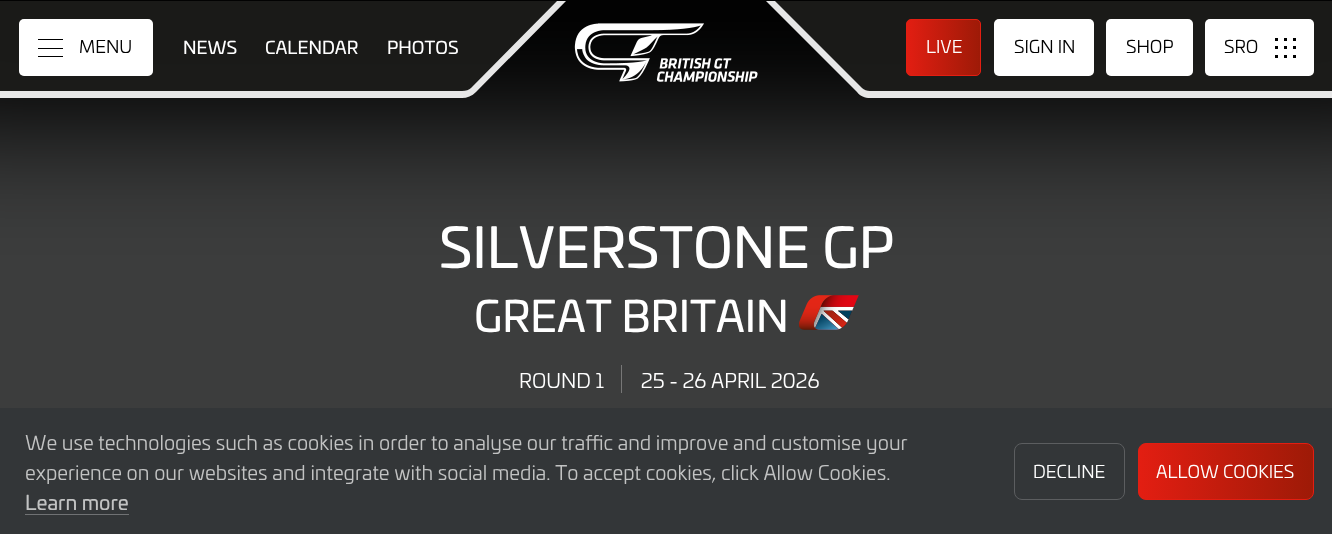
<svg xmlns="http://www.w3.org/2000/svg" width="1332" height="534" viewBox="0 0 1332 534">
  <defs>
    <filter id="blur1" x="-50%" y="-200%" width="200%" height="500%"><feGaussianBlur stdDeviation="62.5"/></filter>
    <linearGradient id="g1" gradientUnits="userSpaceOnUse" x1="906" y1="48" x2="981" y2="48"><stop offset="0" stop-color="#e31e12"/><stop offset="1" stop-color="#9d1a07"/></linearGradient>
    <linearGradient id="g2" gradientUnits="userSpaceOnUse" x1="1138" y1="471" x2="1314" y2="471"><stop offset="0" stop-color="#e31e12"/><stop offset="1" stop-color="#9d1a07"/></linearGradient>
  </defs>
  <rect width="100%" height="100%" fill="#3c3d3d"/>
  <image x="799" y="295" width="60" height="35" href="img2.png"/>
  <rect x="-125" y="-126" width="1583" height="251" fill="#000000" filter="url(#blur1)"/>
  <path d="M-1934 1V91H462C466 91 469 90 471 88L557 1Z" fill="#1d1d1b" fill-opacity="0.9"/>
  <path d="M557 1L471 88C469 90 466 91 462 91H-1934V98H462C467 98 472 96 476 92L566 1Z" fill="#ffffff" fill-opacity="0.9"/>
  <rect x="19" y="19" width="134" height="57" rx="5" fill="#ffffff"/>
  <rect x="19.5" y="19.5" width="133" height="56" rx="4.5" fill="none" stroke="#ffffff" stroke-opacity="0.2"/>
  <rect x="38" y="39" width="25" height="1" fill="#000000"/>
  <rect x="38" y="48" width="25" height="1" fill="#000000"/>
  <rect x="38" y="56" width="25" height="1" fill="#000000"/>
  <text x="79" y="53" font-family="'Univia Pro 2'" font-size="17.5" fill="#000000">MENU</text>
  <text x="183" y="54" font-family="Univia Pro" font-size="17.5" fill="#ffffff">NEWS</text>
  <text x="265" y="54" font-family="Univia Pro" font-size="17.5" fill="#ffffff">CALENDAR</text>
  <text x="387" y="54" font-family="Univia Pro" font-size="17.5" fill="#ffffff">PHOTOS</text>
  <image x="574" y="23" width="184" height="59" href="img1.png"/>
  <path d="M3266 1V91H870C867 91 864 90 861 88L775 1Z" fill="#1d1d1b" fill-opacity="0.9"/>
  <path d="M775 1L862 88C864 90 867 91 870 91H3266V98H870C865 98 860 96 857 92L766 1Z" fill="#ffffff" fill-opacity="0.9"/>
  <rect x="906.5" y="19.5" width="74" height="56" rx="4.5" fill="url(#g1)" stroke="#e31e12"/>
  <text x="926" y="53" font-family="'Univia Pro 2'" font-size="17.5" fill="#ffffff">LIVE</text>
  <rect x="994" y="19" width="100" height="57" rx="5" fill="#ffffff"/>
  <rect x="994.5" y="19.5" width="99" height="56" rx="4.5" fill="none" stroke="#ffffff" stroke-opacity="0.2"/>
  <text x="1014" y="53" font-family="'Univia Pro 2'" font-size="17.5" fill="#000000">SIGN IN</text>
  <rect x="1106" y="19" width="87" height="57" rx="5" fill="#ffffff"/>
  <rect x="1106.5" y="19.5" width="86" height="56" rx="4.5" fill="none" stroke="#ffffff" stroke-opacity="0.2"/>
  <text x="1126" y="53" font-family="'Univia Pro 2'" font-size="17.5" fill="#000000">SHOP</text>
  <rect x="1205" y="19" width="109" height="57" rx="5" fill="#ffffff"/>
  <rect x="1205.5" y="19.5" width="108" height="56" rx="4.5" fill="none" stroke="#ffffff" stroke-opacity="0.2"/>
  <text x="1224" y="53" font-family="'Univia Pro 2'" font-size="17.5" fill="#000000">SRO</text>
  <rect x="1275" y="38" width="3" height="3" fill="#000000"/>
  <rect x="1284" y="38" width="3" height="3" fill="#000000"/>
  <rect x="1293" y="38" width="3" height="3" fill="#000000"/>
  <rect x="1275" y="46" width="3" height="3" fill="#000000"/>
  <rect x="1284" y="46" width="3" height="3" fill="#000000"/>
  <rect x="1293" y="46" width="3" height="3" fill="#000000"/>
  <rect x="1275" y="55" width="3" height="3" fill="#000000"/>
  <rect x="1284" y="55" width="3" height="3" fill="#000000"/>
  <rect x="1293" y="55" width="3" height="3" fill="#000000"/>
  <text x="439" y="268" font-family="Univia Pro" font-size="55" fill="#ffffff">SILVERSTONE GP</text>
  <text x="474" y="332" font-family="Univia Pro" font-size="42.5" fill="#ffffff">GREAT BRITAIN</text>
  <text x="519" y="388" font-family="'Univia Pro 2'" font-size="20" fill="#ffffff">ROUND 1</text>
  <rect x="621" y="365" width="1" height="28" fill="#777777"/>
  <text x="641" y="388" font-family="'Univia Pro 2'" font-size="20" fill="#ffffff">25 - 26 APRIL 2026</text>
  <rect x="0" y="408" width="1332" height="126" fill="#333638"/>
  <text x="25" y="450" font-family="'Univia Pro 2'" font-size="20" fill="#c2c3c3">We use technologies such as cookies in order to analyse our traffic and improve and customise your</text>
  <text x="25" y="480" font-family="'Univia Pro 2'" font-size="20" fill="#c2c3c3">experience on our websites and integrate with social media. To accept cookies, click Allow Cookies.</text>
  <text x="25" y="510" font-family="Univia Pro" font-size="20" fill="#c2c3c3">Learn more</text>
  <rect x="25" y="514" width="104" height="1" fill="#707274"/>
  <rect x="1014.5" y="443.5" width="110" height="56" rx="7.5" fill="none" stroke="#5c5e60"/>
  <text x="1033" y="478" font-family="'Univia Pro 2'" font-size="17.5" fill="#ffffff">DECLINE</text>
  <rect x="1138.5" y="443.5" width="175" height="56" rx="7.5" fill="url(#g2)" stroke="#e31e12"/>
  <text x="1156" y="478" font-family="'Univia Pro 2'" font-size="17.5" fill="#ffffff">ALLOW COOKIES</text>
</svg>
